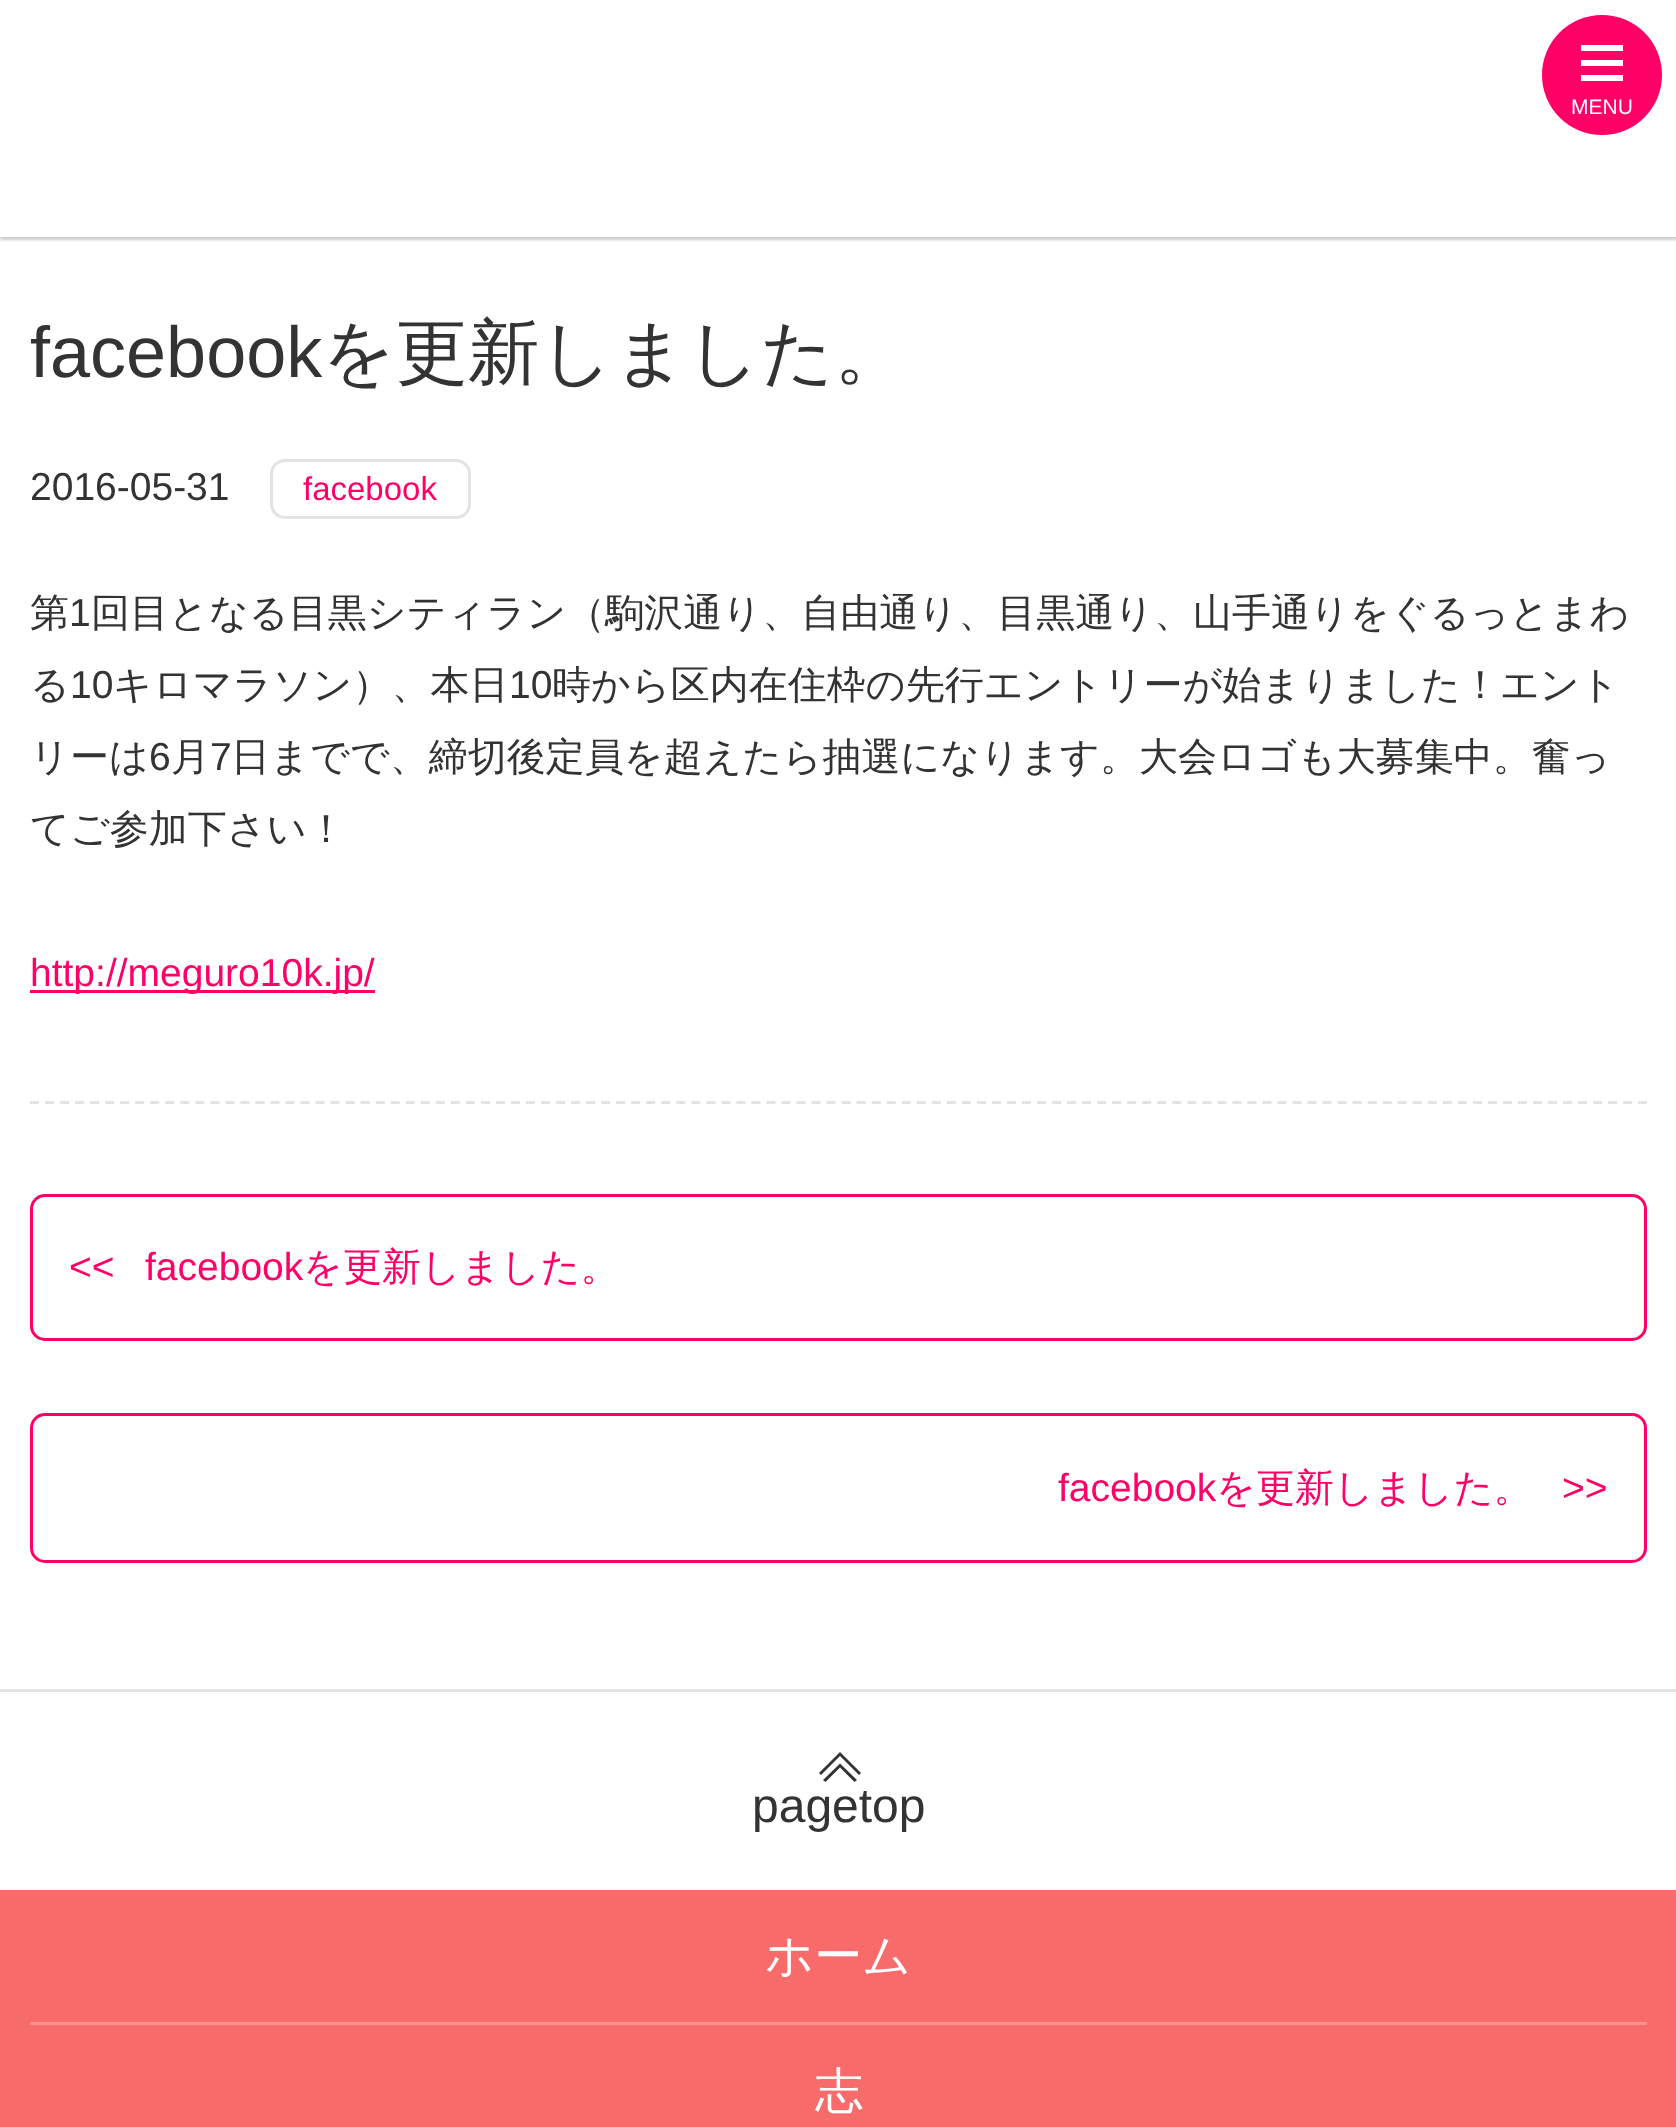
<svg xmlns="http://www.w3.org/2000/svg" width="1676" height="2127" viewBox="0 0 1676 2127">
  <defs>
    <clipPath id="clip1"><rect x="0" y="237" width="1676" height="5"/></clipPath>
    <filter id="blur1" x="-50%" y="-200%" width="200%" height="500%"><feGaussianBlur stdDeviation="1.5"/></filter>
  </defs>
  <rect width="100%" height="100%" fill="#ffffff"/>
  <g clip-path="url(#clip1)">
    <rect x="0" y="3" width="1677" height="237" fill="#000000" fill-opacity="0.2" filter="url(#blur1)"/>
  </g>
  <circle cx="1602" cy="75" r="60" fill="#ff0066"/>
  <rect x="1581" y="60" width="42" height="6" fill="#ffffff"/>
  <rect x="1581" y="45" width="42" height="6" fill="#ffffff"/>
  <rect x="1581" y="75" width="42" height="6" fill="#ffffff"/>
  <text x="1571" y="114" font-family="Liberation Sans" font-size="21" fill="#ffffff">MENU</text>
  <text x="30" y="377" font-family="Liberation Sans" font-size="72" fill="#333333">facebook</text>
  <text x="322" y="377" font-family="WenQuanYi Zen Hei" font-size="72" font-weight="500" fill="#333333">を更新しました。</text>
  <text x="30" y="500" font-family="Liberation Sans" font-size="39" fill="#333333">2016-05-31</text>
  <rect x="271.5" y="460.5" width="198" height="57" rx="13.5" fill="none" stroke="#e3e3e3" stroke-width="3"/>
  <text x="303" y="500" font-family="Liberation Sans" font-size="33" fill="#ff0066">facebook</text>
  <text x="30" y="626" font-family="WenQuanYi Zen Hei" font-size="39" font-weight="500" fill="#333333">第</text>
  <text x="69" y="626" font-family="Liberation Sans" font-size="39" fill="#333333">1</text>
  <text x="91" y="626" font-family="WenQuanYi Zen Hei" font-size="39" font-weight="500" fill="#333333">回目となる目黒シティラン（駒沢通り、自由通り、目黒通り、山手通りをぐるっとまわ</text>
  <text x="30" y="698" font-family="WenQuanYi Zen Hei" font-size="39" font-weight="500" fill="#333333">る</text>
  <text x="70" y="698" font-family="Liberation Sans" font-size="39" fill="#333333">10</text>
  <text x="113" y="698" font-family="WenQuanYi Zen Hei" font-size="39" font-weight="500" fill="#333333">キロマラソン）、本日</text>
  <text x="509" y="698" font-family="Liberation Sans" font-size="39" fill="#333333">10</text>
  <text x="552" y="698" font-family="WenQuanYi Zen Hei" font-size="39" font-weight="500" fill="#333333">時から区内在住枠の先行エントリーが始まりました！エント</text>
  <text x="30" y="770" font-family="WenQuanYi Zen Hei" font-size="39" font-weight="500" fill="#333333">リーは</text>
  <text x="149" y="770" font-family="Liberation Sans" font-size="39" fill="#333333">6</text>
  <text x="171" y="770" font-family="WenQuanYi Zen Hei" font-size="39" font-weight="500" fill="#333333">月</text>
  <text x="210" y="770" font-family="Liberation Sans" font-size="39" fill="#333333">7</text>
  <text x="231" y="770" font-family="WenQuanYi Zen Hei" font-size="39" font-weight="500" fill="#333333">日までで、締切後定員を超えたら抽選になります。大会ロゴも大募集中。奮っ</text>
  <text x="30" y="842" font-family="WenQuanYi Zen Hei" font-size="39" font-weight="500" fill="#333333">てご参加下さい！</text>
  <rect x="30" y="990" width="345" height="3" fill="#ff0066"/>
  <text x="30" y="986" font-family="Liberation Sans" font-size="39" fill="#ff0066">http://meguro10k.jp/</text>
  <path d="M30 1102.5H1647" fill="none" stroke="#e3e3e3" stroke-width="3" stroke-dasharray="9 6.03"/>
  <rect x="31.5" y="1195.5" width="1614" height="144" rx="13.5" fill="none" stroke="#ff0066" stroke-width="3"/>
  <text x="69" y="1280" font-family="Liberation Sans" font-size="39" fill="#ff0066">&lt;&lt;</text>
  <text x="145" y="1280" font-family="Liberation Sans" font-size="39" fill="#ff0066">facebook</text>
  <text x="303" y="1280" font-family="WenQuanYi Zen Hei" font-size="39" font-weight="500" fill="#ff0066">を更新しました。</text>
  <rect x="31.5" y="1414.5" width="1614" height="147" rx="13.5" fill="none" stroke="#ff0066" stroke-width="3"/>
  <text x="1058" y="1501" font-family="Liberation Sans" font-size="39" fill="#ff0066">facebook</text>
  <text x="1216" y="1501" font-family="WenQuanYi Zen Hei" font-size="39" font-weight="500" fill="#ff0066">を更新しました。</text>
  <text x="1562" y="1501" font-family="Liberation Sans" font-size="39" fill="#ff0066">&gt;&gt;</text>
  <rect x="0" y="1689" width="1676" height="3" fill="#e3e3e3"/>
  <path d="M840 1752L819 1773L821 1775L840 1756L859 1775L861 1773Z" fill="#333333"/>
  <path d="M838 1765.5L823 1780L825.5 1782L840 1767.5L854.5 1782L857 1780L840 1763.5Z" fill="#333333"/>
  <text x="752" y="1822" font-family="Liberation Sans" font-size="48" fill="#333333">pagetop</text>
  <rect x="0" y="1890" width="1676" height="237" fill="#f86b6b"/>
  <rect x="30" y="2022" width="1617" height="3" fill="#fa9090"/>
  <text x="765" y="1972" font-family="WenQuanYi Zen Hei" font-size="48" font-weight="500" fill="#ffffff">ホーム</text>
  <text x="815" y="2107" font-family="WenQuanYi Zen Hei" font-size="48" font-weight="500" fill="#ffffff">志</text>
</svg>
